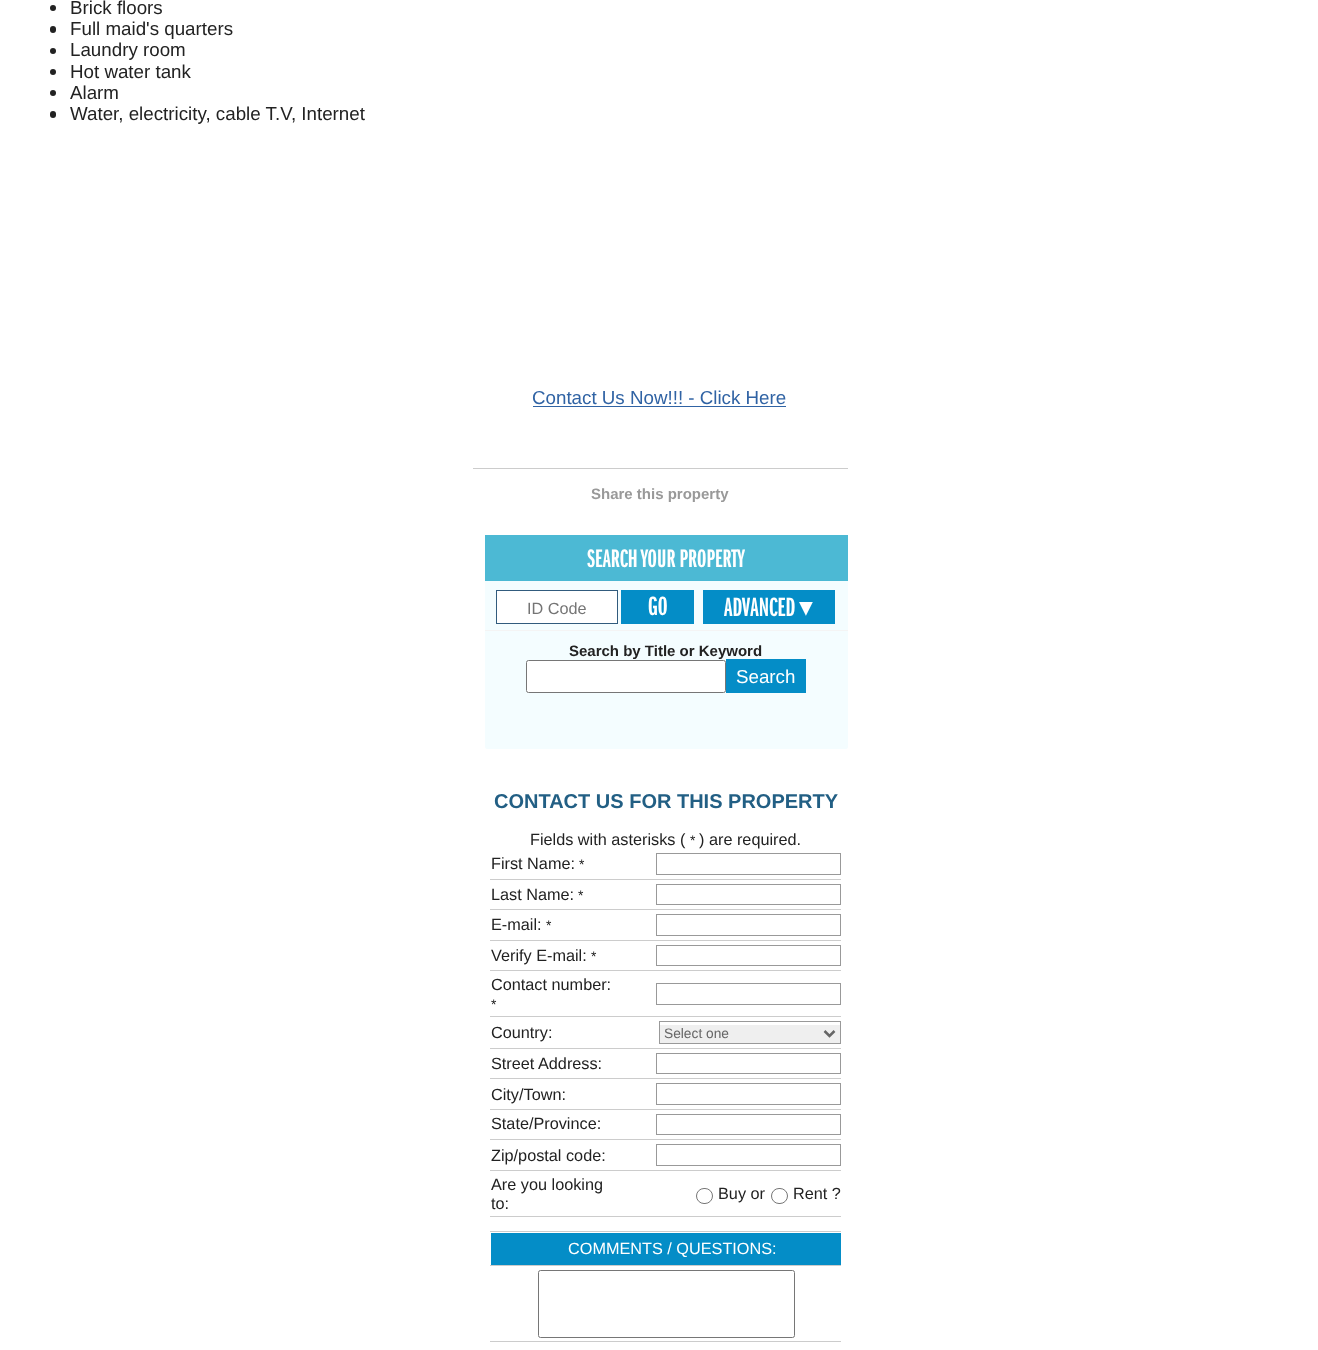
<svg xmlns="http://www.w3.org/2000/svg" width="1318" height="1350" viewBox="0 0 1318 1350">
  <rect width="100%" height="100%" fill="#ffffff"/>
  <circle cx="53" cy="8" r="3" fill="#222222"/>
  <text x="70" y="14" font-family="Liberation Sans" font-size="18.75" fill="#222222">Brick floors</text>
  <rect x="50" y="26" width="6" height="7" rx="3" fill="#222222"/>
  <text x="70" y="35" font-family="Liberation Sans" font-size="18.75" fill="#222222">Full maid's quarters</text>
  <circle cx="53" cy="51" r="3" fill="#222222"/>
  <text x="70" y="56" font-family="Liberation Sans" font-size="18.75" fill="#222222">Laundry room</text>
  <circle cx="53" cy="72" r="3" fill="#222222"/>
  <text x="70" y="78" font-family="Liberation Sans" font-size="18.75" fill="#222222">Hot water tank</text>
  <circle cx="53" cy="93" r="3" fill="#222222"/>
  <text x="70" y="99" font-family="Liberation Sans" font-size="18.75" fill="#222222">Alarm</text>
  <rect x="50" y="111" width="6" height="7" rx="3" fill="#222222"/>
  <text x="70" y="120" font-family="Liberation Sans" font-size="18.75" fill="#222222">Water, electricity, cable T.V, Internet</text>
  <text x="532" y="404" font-family="Liberation Sans" font-size="18.75" fill="#3063a4">Contact Us Now!!! - Click Here</text>
  <rect x="533" y="406" width="253" height="1" fill="#3063a4"/>
  <rect x="473" y="468" width="375" height="1" fill="#cccccc"/>
  <text x="591" y="499" font-family="Liberation Sans" font-size="15" font-weight="bold" fill="#999999">Share this property</text>
  <rect x="485" y="535" width="363" height="214" rx="2.5" fill="#f4fdff"/>
  <rect x="485" y="535" width="363" height="46" fill="#4cb9d4"/>
  <text x="587" y="567" font-family="'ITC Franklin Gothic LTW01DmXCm'" font-size="26.25" font-weight="600" fill="#ffffff">SEARCH YOUR PROPERTY</text>
  <rect x="485" y="630" width="363" height="1" fill="#f4f4f4"/>
  <rect x="496.5" y="590.5" width="121" height="33" fill="#ffffff" stroke="#315b7d"/>
  <text x="527" y="614" font-family="Liberation Sans" font-size="16.25" fill="#757575">ID Code</text>
  <rect x="621" y="590" width="73" height="34" fill="#048dc7"/>
  <text x="648" y="615" font-family="'ITC Franklin Gothic LTW01DmXCm'" font-size="27.5" font-weight="600" fill="#ffffff">GO</text>
  <rect x="703" y="590" width="132" height="34" fill="#048dc7"/>
  <text x="724" y="616" font-family="'ITC Franklin Gothic LTW01DmXCm'" font-size="27.5" font-weight="600" fill="#ffffff">ADVANCED</text>
  <text x="799" y="616" font-family="DejaVu Sans" font-size="27.5" fill="#ffffff">▾</text>
  <text x="569" y="656" font-family="Liberation Sans" font-size="15" font-weight="bold" fill="#222222">Search by Title or Keyword</text>
  <rect x="526.5" y="660.5" width="199" height="32" rx="2" fill="#ffffff" stroke="#767676"/>
  <rect x="726" y="659" width="80" height="34" fill="#048dc7"/>
  <text x="736" y="683" font-family="Liberation Sans" font-size="18.75" fill="#ffffff">Search</text>
  <text x="494" y="808" font-family="Liberation Sans" font-size="20" font-weight="bold" fill="#225f84">CONTACT US FOR THIS PROPERTY</text>
  <text x="530" y="845" font-family="Liberation Sans" font-size="16.25" fill="#222222">Fields with asterisks (</text>
  <text x="690" y="845" font-family="Liberation Sans" font-size="13.75" fill="#222222">*</text>
  <text x="699" y="845" font-family="Liberation Sans" font-size="16.25" fill="#222222">) are required.</text>
  <rect x="490" y="879" width="351" height="1" fill="#cccccc"/>
  <rect x="656.5" y="853.5" width="184" height="21" fill="none" stroke="#999999"/>
  <text x="491" y="869" font-family="Liberation Sans" font-size="16.25" fill="#222222">First Name:</text>
  <text x="579" y="869" font-family="Liberation Sans" font-size="13.75" fill="#222222">*</text>
  <rect x="490" y="909" width="351" height="1" fill="#cccccc"/>
  <rect x="656.5" y="884.5" width="184" height="20" fill="none" stroke="#999999"/>
  <text x="491" y="900" font-family="Liberation Sans" font-size="16.25" fill="#222222">Last Name:</text>
  <text x="578" y="900" font-family="Liberation Sans" font-size="13.75" fill="#222222">*</text>
  <rect x="490" y="940" width="351" height="1" fill="#cccccc"/>
  <rect x="656.5" y="914.5" width="184" height="21" fill="none" stroke="#999999"/>
  <text x="491" y="930" font-family="Liberation Sans" font-size="16.25" fill="#222222">E-mail:</text>
  <text x="546" y="930" font-family="Liberation Sans" font-size="13.75" fill="#222222">*</text>
  <rect x="490" y="970" width="351" height="1" fill="#cccccc"/>
  <rect x="656.5" y="945.5" width="184" height="20" fill="none" stroke="#999999"/>
  <text x="491" y="961" font-family="Liberation Sans" font-size="16.25" fill="#222222">Verify E-mail:</text>
  <text x="591" y="961" font-family="Liberation Sans" font-size="13.75" fill="#222222">*</text>
  <text x="491" y="990" font-family="Liberation Sans" font-size="16.25" fill="#222222">Contact number:</text>
  <text x="491" y="1009" font-family="Liberation Sans" font-size="13.75" fill="#222222">*</text>
  <rect x="490" y="1016" width="351" height="1" fill="#cccccc"/>
  <rect x="656.5" y="983.5" width="184" height="21" fill="none" stroke="#999999"/>
  <text x="491" y="1038" font-family="Liberation Sans" font-size="16.25" fill="#222222">Country:</text>
  <rect x="490" y="1048" width="351" height="1" fill="#cccccc"/>
  <rect x="659.5" y="1021.5" width="181" height="22" fill="none" stroke="#999999"/>
  <rect x="660" y="1025" width="180" height="18" fill="#efefef"/>
  <path d="M824.5 1031L829.5 1036L834.5 1031" fill="none" stroke="#666666" stroke-width="2.5"/>
  <text x="664" y="1038" font-family="Liberation Sans" font-size="13.75" fill="#666666">Select one</text>
  <rect x="490" y="1078" width="351" height="1" fill="#cccccc"/>
  <rect x="656.5" y="1053.5" width="184" height="20" fill="none" stroke="#999999"/>
  <text x="491" y="1069" font-family="Liberation Sans" font-size="16.25" fill="#222222">Street Address:</text>
  <rect x="490" y="1109" width="351" height="1" fill="#cccccc"/>
  <rect x="656.5" y="1083.5" width="184" height="21" fill="none" stroke="#999999"/>
  <text x="491" y="1100" font-family="Liberation Sans" font-size="16.25" fill="#222222">City/Town:</text>
  <rect x="490" y="1139" width="351" height="1" fill="#cccccc"/>
  <text x="491" y="1129" font-family="Liberation Sans" font-size="16.25" fill="#222222">State/Province:</text>
  <rect x="656.5" y="1114.5" width="184" height="20" fill="none" stroke="#999999"/>
  <rect x="490" y="1170" width="351" height="1" fill="#cccccc"/>
  <rect x="656.5" y="1144.5" width="184" height="21" fill="none" stroke="#999999"/>
  <text x="491" y="1161" font-family="Liberation Sans" font-size="16.25" fill="#222222">Zip/postal code:</text>
  <text x="491" y="1190" font-family="Liberation Sans" font-size="16.25" fill="#222222">Are you looking</text>
  <text x="491" y="1209" font-family="Liberation Sans" font-size="16.25" fill="#222222">to:</text>
  <rect x="490" y="1216" width="351" height="1" fill="#cccccc"/>
  <rect x="696.5" y="1188.5" width="16" height="15" rx="7.5" fill="none" stroke="#767676"/>
  <text x="718" y="1199" font-family="Liberation Sans" font-size="16.25" fill="#222222">Buy or</text>
  <rect x="771.5" y="1188.5" width="16" height="15" rx="7.5" fill="none" stroke="#767676"/>
  <text x="793" y="1199" font-family="Liberation Sans" font-size="16.25" fill="#222222">Rent ?</text>
  <rect x="490" y="1231" width="351" height="1" fill="#cccccc"/>
  <rect x="491" y="1233" width="350" height="32" fill="#048dc7"/>
  <rect x="490" y="1265" width="351" height="1" fill="#cccccc"/>
  <text x="568" y="1254" font-family="Liberation Sans" font-size="16.25" fill="#ffffff">COMMENTS / QUESTIONS:</text>
  <rect x="490" y="1341" width="351" height="1" fill="#cccccc"/>
  <rect x="538.5" y="1270.5" width="256" height="67" rx="2" fill="none" stroke="#767676"/>
</svg>
